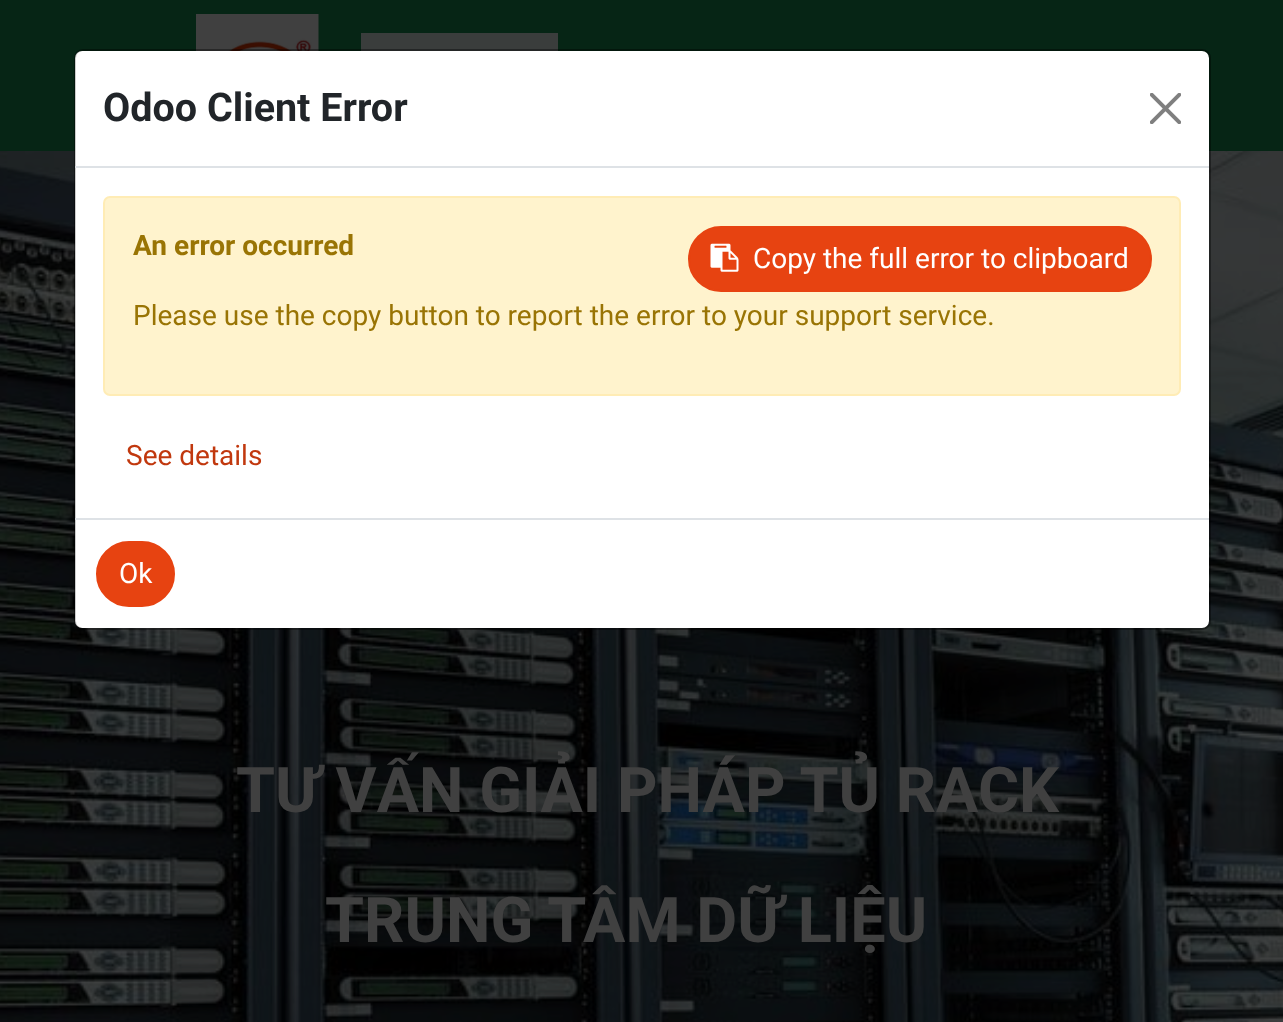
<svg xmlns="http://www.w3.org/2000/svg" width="1283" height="1022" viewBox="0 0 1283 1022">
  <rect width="100%" height="100%" fill="#ffffff"/>
  <rect x="0" y="0" width="1283" height="151" fill="#062515"/>
  <image x="196" y="14" width="123" height="37" href="img3.png"/>
  <rect x="361" y="33" width="197" height="18" fill="#3a3d3c"/>
  <image x="0" y="151" width="1283" height="871" href="img4.png"/>
  <rect x="170" y="628" width="945" height="394" fill="#000000" fill-opacity="0.15"/>
  <rect x="75" y="50" width="1135" height="579" rx="8" fill="none" stroke="#000000" stroke-opacity="0.2" stroke-width="2"/>
  <rect x="75" y="51" width="1134" height="577" rx="7" fill="#ffffff"/>
  <rect x="75" y="50" width="1135" height="579" rx="8" fill="none" stroke="#000000" stroke-opacity="0.2" stroke-width="2"/>
  <rect x="75" y="166" width="1134" height="2" fill="#dee2e6"/>
  <text x="103" y="121" font-family="Roboto" font-size="39.5" font-weight="bold" fill="#212529">Odoo Client Error</text>
  <image x="1150" y="93" width="31" height="31" href="img1.png"/>
  <rect x="104" y="197" width="1076" height="198" rx="6" fill="#fff3cd" stroke="#ffecb5" stroke-width="2"/>
  <text x="133" y="255" font-family="Roboto" font-size="28" font-weight="bold" fill="#997404">An error occurred</text>
  <rect x="689" y="227" width="462" height="64" rx="32" fill="#e74311" stroke="#e74311" stroke-width="2"/>
  <image x="710" y="243" width="29" height="29" href="img2.png"/>
  <text x="753" y="268" font-family="Roboto" font-size="28" fill="#ffffff">Copy the full error to clipboard</text>
  <text x="133" y="325" font-family="Roboto" font-size="28" fill="#997404">Please use the copy button to report the error to your support service.</text>
  <text x="126" y="465" font-family="Roboto" font-size="28" fill="#c1380e">See details</text>
  <rect x="75" y="518" width="1134" height="2" fill="#dee2e6"/>
  <rect x="97" y="542" width="77" height="64" rx="32" fill="#e74311" stroke="#e74311" stroke-width="2"/>
  <text x="119" y="583" font-family="Roboto" font-size="28" fill="#ffffff">Ok</text>
  <text x="236" y="812" font-family="Roboto" font-size="63" font-weight="bold" fill="#404040">TƯ VẤN GIẢI PHÁP TỦ RACK</text>
  <text x="325" y="942" font-family="Roboto" font-size="63" font-weight="bold" fill="#404040">TRUNG TÂM DỮ LIỆU</text>
</svg>
